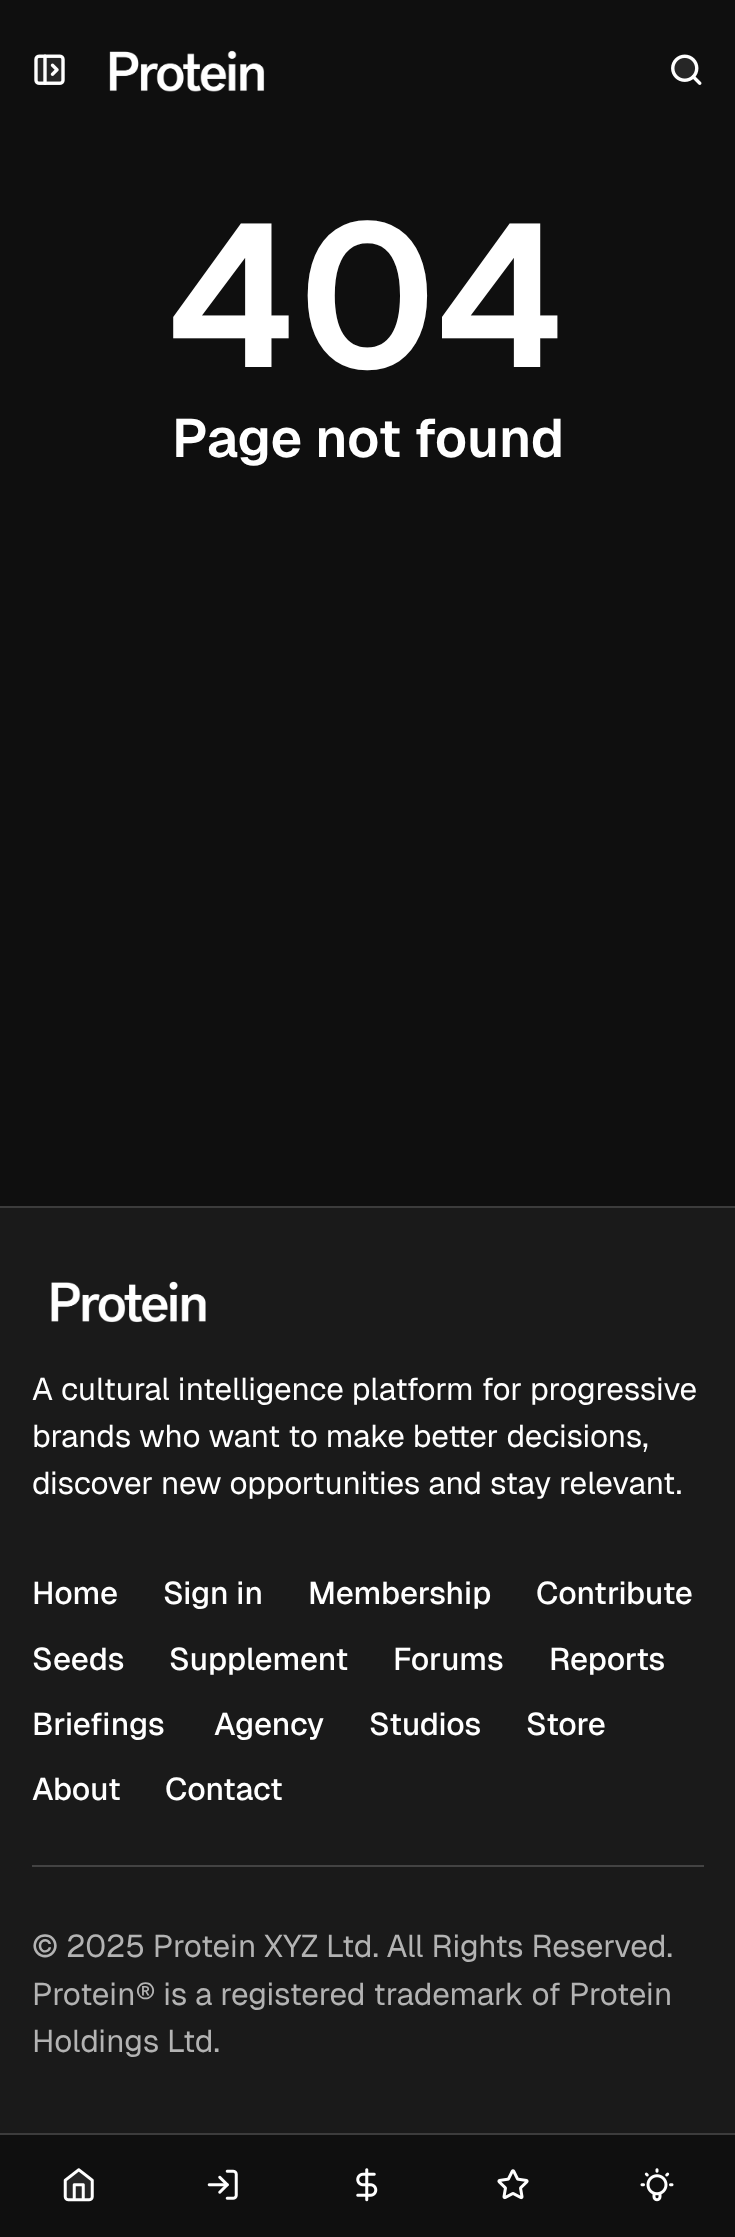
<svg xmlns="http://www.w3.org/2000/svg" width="735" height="2237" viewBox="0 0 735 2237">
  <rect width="100%" height="100%" fill="#0f0f0f"/>
  <image x="34" y="54" width="31" height="31" href="img1.png"/>
  <image x="109" y="50" width="156" height="42" href="img2.png"/>
  <image x="671" y="54" width="31" height="31" href="img3.png"/>
  <text x="168" y="367" font-family="Geist" font-size="202" font-weight="600" fill="#ffffff">404</text>
  <text x="172" y="457" font-family="Geist" font-size="54" font-weight="600" fill="#ffffff">Page not found</text>
  <rect x="0" y="1208" width="735" height="925" fill="#1a1a1a"/>
  <rect x="0" y="1206" width="735" height="2" fill="#3c3c3c"/>
  <image x="51" y="1281" width="155" height="42" href="img4.png"/>
  <text x="32" y="1400" font-family="Geist" font-size="31.5" fill="#ffffff">A cultural intelligence platform for progressive</text>
  <text x="32" y="1447" font-family="Geist" font-size="31.5" fill="#ffffff">brands who want to make better decisions,</text>
  <text x="32" y="1494" font-family="Geist" font-size="31.5" fill="#ffffff">discover new opportunities and stay relevant.</text>
  <text x="32" y="1604" font-family="Geist" font-size="31.5" font-weight="500" fill="#ffffff">Home</text>
  <text x="163" y="1604" font-family="Geist" font-size="31.5" font-weight="500" fill="#ffffff">Sign in</text>
  <text x="308" y="1604" font-family="Geist" font-size="31.5" font-weight="500" fill="#ffffff">Membership</text>
  <text x="536" y="1604" font-family="Geist" font-size="31.5" font-weight="500" fill="#ffffff">Contribute</text>
  <text x="32" y="1670" font-family="Geist" font-size="31.5" font-weight="500" fill="#ffffff">Seeds</text>
  <text x="169" y="1670" font-family="Geist" font-size="31.5" font-weight="500" fill="#ffffff">Supplement</text>
  <text x="393" y="1670" font-family="Geist" font-size="31.5" font-weight="500" fill="#ffffff">Forums</text>
  <text x="549" y="1670" font-family="Geist" font-size="31.5" font-weight="500" fill="#ffffff">Reports</text>
  <text x="32" y="1735" font-family="Geist" font-size="31.5" font-weight="500" fill="#ffffff">Briefings</text>
  <text x="214" y="1735" font-family="Geist" font-size="31.5" font-weight="500" fill="#ffffff">Agency</text>
  <text x="369" y="1735" font-family="Geist" font-size="31.5" font-weight="500" fill="#ffffff">Studios</text>
  <text x="526" y="1735" font-family="Geist" font-size="31.5" font-weight="500" fill="#ffffff">Store</text>
  <text x="32" y="1800" font-family="Geist" font-size="31.5" font-weight="500" fill="#ffffff">About</text>
  <text x="165" y="1800" font-family="Geist" font-size="31.5" font-weight="500" fill="#ffffff">Contact</text>
  <rect x="32" y="1865" width="672" height="2" fill="#434343"/>
  <text x="32" y="1957" font-family="Geist" font-size="31.5" fill="#b3b3b3">© 2025 Protein XYZ Ltd. All Rights Reserved.</text>
  <text x="32" y="2005" font-family="Geist" font-size="31.5" fill="#b3b3b3">Protein® is a registered trademark of Protein</text>
  <text x="32" y="2052" font-family="Geist" font-size="31.5" fill="#b3b3b3">Holdings Ltd.</text>
  <rect x="0" y="2133" width="735" height="2" fill="#3c3c3c"/>
  <image x="63" y="2168" width="31" height="34" href="img5.png"/>
  <image x="207" y="2169" width="31" height="31" href="img6.png"/>
  <image x="356" y="2168" width="22" height="34" href="img7.png"/>
  <image x="497" y="2169" width="32" height="31" href="img8.png"/>
  <image x="640" y="2168" width="34" height="34" href="img9.png"/>
</svg>
